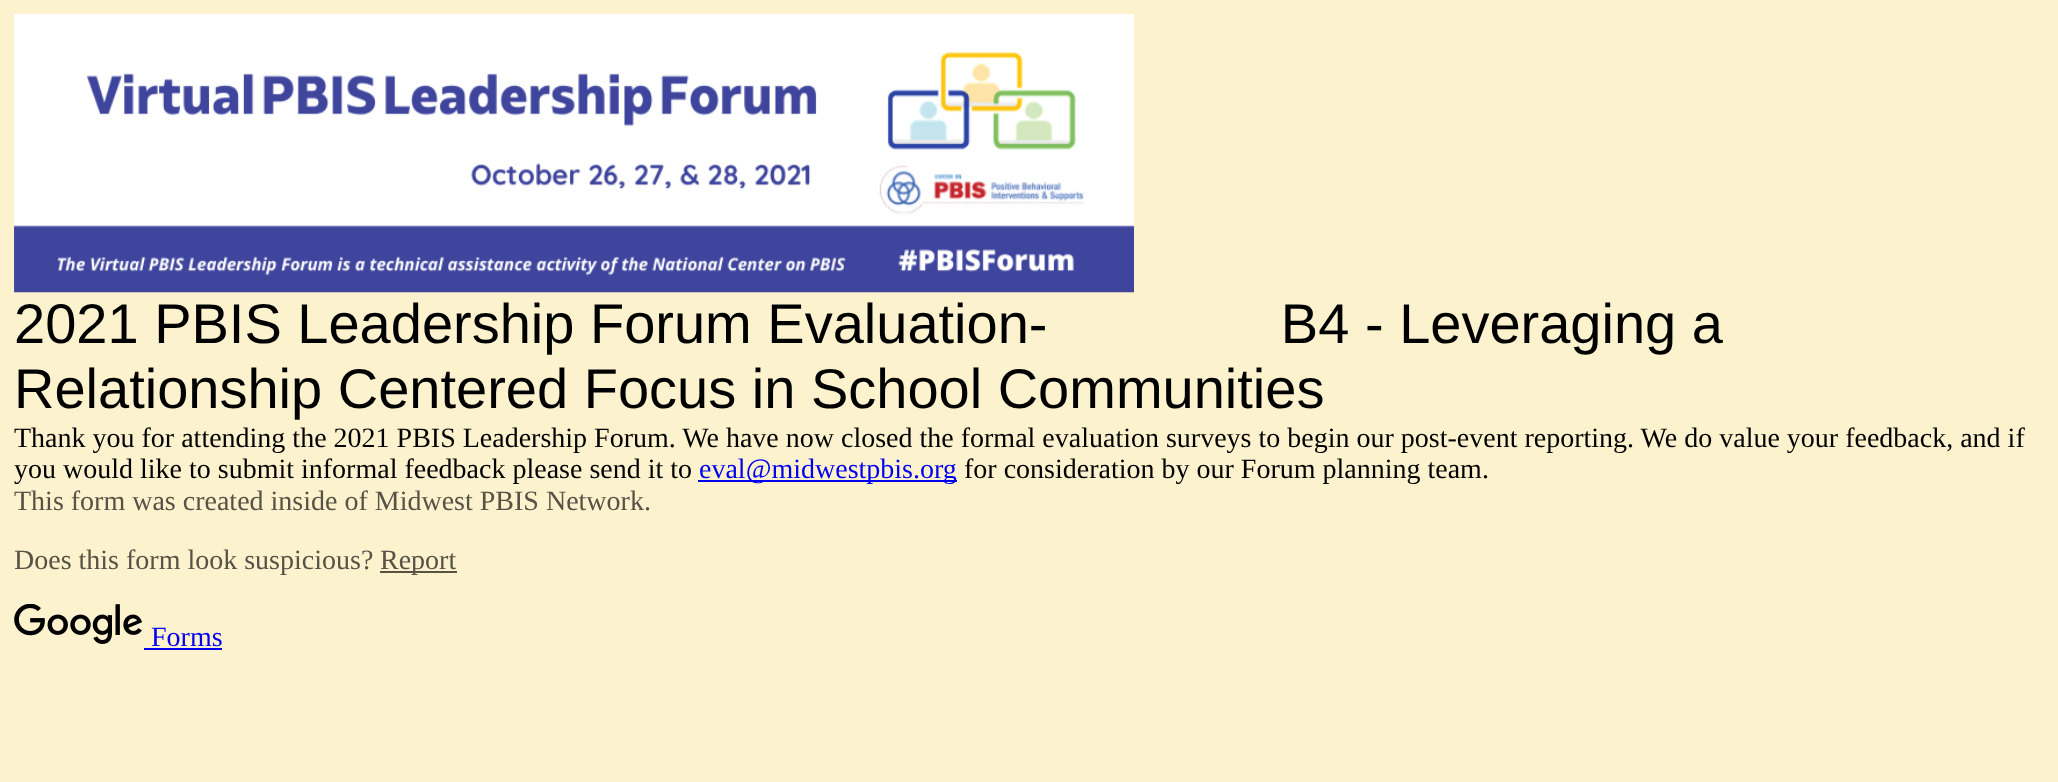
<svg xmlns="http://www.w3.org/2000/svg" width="2058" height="782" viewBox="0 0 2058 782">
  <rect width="100%" height="100%" fill="#fdf2ce"/>
  <image x="14" y="14" width="1120" height="279" href="img1.png"/>
  <text x="14" y="343" font-family="Liberation Sans" font-size="56" fill="#000000" xml:space="preserve">2021 PBIS Leadership Forum Evaluation-               B4 - Leveraging a</text>
  <text x="14" y="408" font-family="Liberation Sans" font-size="56" fill="#000000">Relationship Centered Focus in School Communities</text>
  <text x="14" y="447" font-family="Liberation Serif" font-size="28" fill="#000000">Thank you for attending the 2021 PBIS Leadership Forum. We have now closed the formal evaluation surveys to begin our post-event reporting. We do value your feedback, and if</text>
  <text x="14" y="478" font-family="Liberation Serif" font-size="28" fill="#000000">you would like to submit informal feedback please send it to</text>
  <rect x="698" y="480" width="259" height="2" fill="#0000ee"/>
  <text x="699" y="478" font-family="Liberation Serif" font-size="28" fill="#0000ee">eval@midwestpbis.org</text>
  <text x="964" y="478" font-family="Liberation Serif" font-size="28" fill="#000000">for consideration by our Forum planning team.</text>
  <text x="14" y="510" font-family="Liberation Serif" font-size="28" fill="#565246">This form was created inside of Midwest PBIS Network.</text>
  <text x="14" y="569" font-family="Liberation Serif" font-size="28" fill="#565246">Does this form look suspicious?</text>
  <rect x="380" y="571" width="77" height="2" fill="#565246"/>
  <text x="380" y="569" font-family="Liberation Serif" font-size="28" fill="#565246">Report</text>
  <image x="14" y="604" width="128" height="40" href="img2.png"/>
  <text x="151" y="646" font-family="Liberation Serif" font-size="28" fill="#0000ee">Forms</text>
  <rect x="144" y="648" width="78" height="2" fill="#0000ee"/>
</svg>
